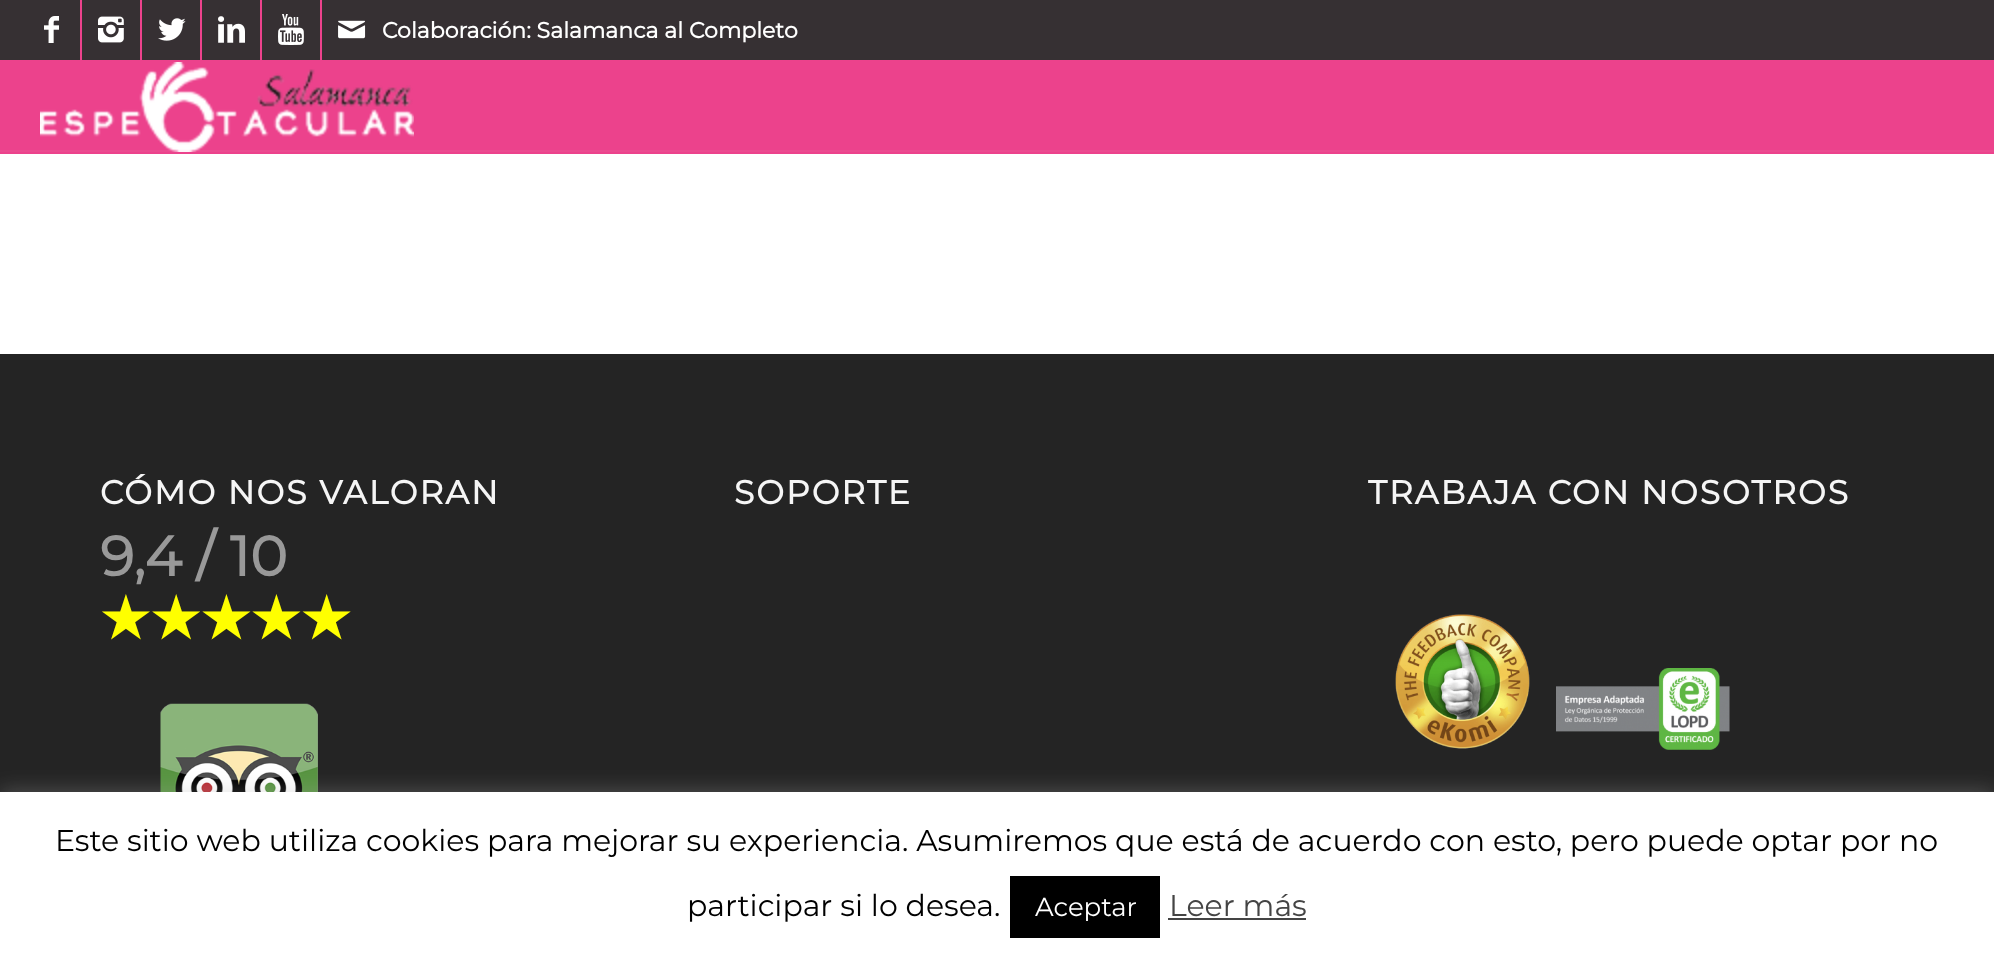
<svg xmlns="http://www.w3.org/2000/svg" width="1994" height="961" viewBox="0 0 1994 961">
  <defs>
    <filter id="blur1" x="-50%" y="-200%" width="200%" height="500%"><feGaussianBlur stdDeviation="10"/></filter>
  </defs>
  <rect width="100%" height="100%" fill="#ec428c"/>
  <rect x="0" y="0" width="1994" height="60" fill="#363033"/>
  <rect x="80" y="0" width="2" height="60" fill="#ec428c"/>
  <image x="44" y="16" width="15" height="27" href="img1.png"/>
  <rect x="140" y="0" width="2" height="60" fill="#ec428c"/>
  <image x="98" y="16" width="26" height="27" href="img2.png"/>
  <rect x="200" y="0" width="2" height="60" fill="#ec428c"/>
  <image x="158" y="18" width="28" height="23" href="img3.png"/>
  <rect x="260" y="0" width="2" height="60" fill="#ec428c"/>
  <image x="218" y="16" width="27" height="27" href="img4.png"/>
  <rect x="320" y="0" width="2" height="60" fill="#ec428c"/>
  <image x="278" y="14" width="26" height="31" href="img5.png"/>
  <image x="338" y="20" width="28" height="19" href="img6.png"/>
  <text x="382" y="38" font-family="Montserrat" font-size="22" font-weight="bold" fill="#ffffff">Colaboración: Salamanca al Completo</text>
  <rect x="0" y="150" width="1994" height="2" fill="#eb4a90"/>
  <image x="40" y="62" width="374" height="90" href="img7.png"/>
  <rect x="0" y="154" width="1994" height="200" fill="#ffffff"/>
  <rect x="0" y="354" width="1994" height="438" fill="#242424"/>
  <text x="100" y="504" font-family="Montserrat" font-size="33" font-weight="bold" letter-spacing="2" fill="#f5f5f5">CÓMO NOS VALORAN</text>
  <text x="100" y="576" font-family="Montserrat" font-size="56" font-weight="bold" fill="#999999">9,4 / 10</text>
  <text x="100" y="638" font-family="DejaVu Sans" font-size="56" font-weight="bold" fill="#ffff00">★★★★★</text>
  <image x="160" y="703" width="158" height="89" href="img8.png"/>
  <text x="734" y="504" font-family="Montserrat" font-size="33" font-weight="bold" letter-spacing="2" fill="#f5f5f5">SOPORTE</text>
  <text x="1368" y="504" font-family="Montserrat" font-size="33" font-weight="bold" letter-spacing="2" fill="#f5f5f5">TRABAJA CON NOSOTROS</text>
  <image x="1395" y="614" width="135" height="135" href="img9.png"/>
  <image x="1556" y="668" width="174" height="82" href="img10.png"/>
  <rect x="0" y="790" width="1994" height="170" fill="#acabab" fill-opacity="0.3" filter="url(#blur1)"/>
  <rect x="0" y="792" width="1994" height="169" fill="#ffffff"/>
  <text x="55" y="851" font-family="Montserrat" font-size="30" font-weight="100" fill="#000000">Este sitio web utiliza cookies para mejorar su experiencia. Asumiremos que está de acuerdo con esto, pero puede optar por no</text>
  <text x="687" y="916" font-family="Montserrat" font-size="30" font-weight="100" fill="#000000">participar si lo desea.</text>
  <rect x="1010" y="876" width="150" height="62" fill="#000000"/>
  <text x="1035" y="916" font-family="Montserrat" font-size="26" font-weight="100" fill="#ffffff">Aceptar</text>
  <text x="1169" y="916" font-family="Montserrat" font-size="30" font-weight="100" fill="#444444">Leer más</text>
  <rect x="1168" y="918" width="138" height="2" fill="#444444"/>
</svg>
